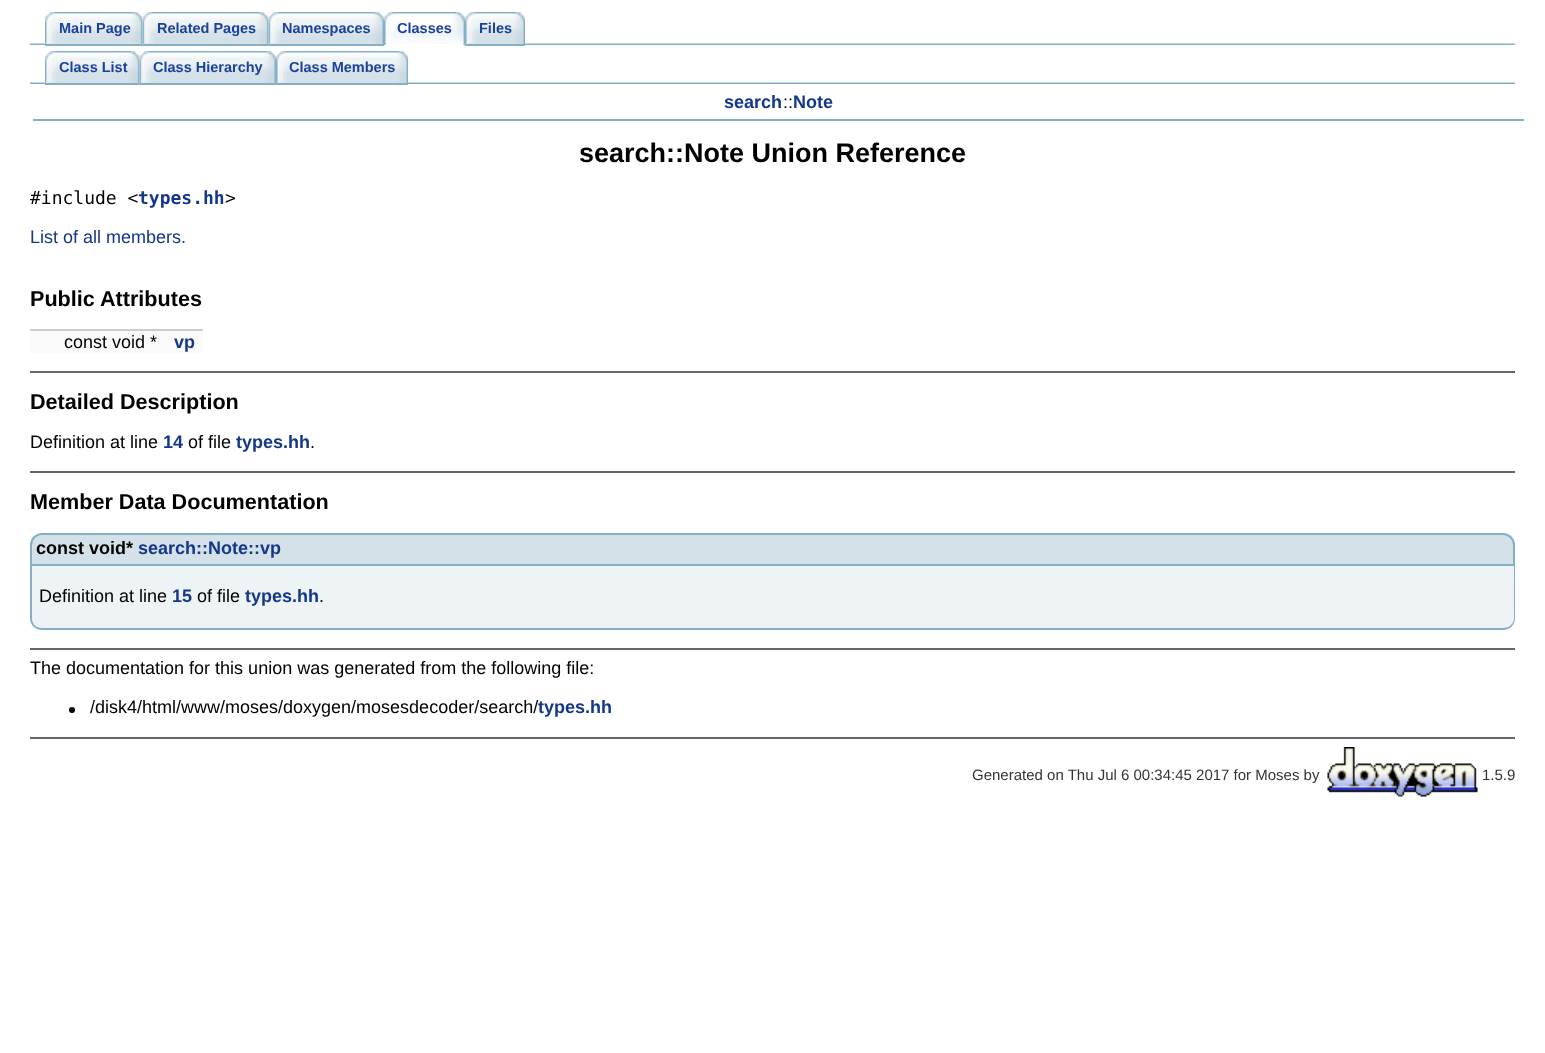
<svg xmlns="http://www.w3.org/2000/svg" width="1545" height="1053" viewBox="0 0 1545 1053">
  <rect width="100%" height="100%" fill="#ffffff"/>
  <image x="30" y="43" width="1485" height="2" href="img1.png"/>
  <image x="45" y="12" width="98" height="32" href="img2.png"/>
  <rect x="45" y="45" width="98" height="1" fill="#84b0c7"/>
  <image x="45" y="12" width="11" height="32" href="img3.png"/>
  <text x="59" y="33" font-family="Liberation Sans" font-size="14.5" font-weight="bold" fill="#1a419d">Main Page</text>
  <image x="142" y="12" width="127" height="33" href="img4.png"/>
  <rect x="143" y="44" width="126" height="2" fill="#84b0c7"/>
  <image x="142" y="12" width="12" height="32" href="img5.png"/>
  <text x="157" y="33" font-family="Liberation Sans" font-size="14.5" font-weight="bold" fill="#1a419d">Related Pages</text>
  <image x="268" y="12" width="116" height="33" href="img6.png"/>
  <rect x="269" y="44" width="115" height="2" fill="#84b0c7"/>
  <image x="268" y="12" width="12" height="32" href="img5.png"/>
  <text x="282" y="33" font-family="Liberation Sans" font-size="14.5" font-weight="bold" fill="#1a419d">Namespaces</text>
  <image x="394" y="12" width="71" height="33" href="img7.png"/>
  <image x="384" y="12" width="10" height="33" href="img8.png"/>
  <text x="397" y="33" font-family="Liberation Sans" font-size="14.5" font-weight="bold" fill="#1a419d">Classes</text>
  <image x="465" y="12" width="60" height="32" href="img9.png"/>
  <rect x="465" y="45" width="60" height="1" fill="#84b0c7"/>
  <image x="465" y="12" width="11" height="32" href="img10.png"/>
  <text x="479" y="33" font-family="Liberation Sans" font-size="14.5" font-weight="bold" fill="#1a419d">Files</text>
  <image x="30" y="82" width="1485" height="2" href="img1.png"/>
  <image x="45" y="51" width="95" height="32" href="img11.png"/>
  <rect x="45" y="84" width="95" height="1" fill="#84b0c7"/>
  <image x="45" y="51" width="11" height="32" href="img3.png"/>
  <text x="59" y="72" font-family="Liberation Sans" font-size="14.5" font-weight="bold" fill="#1a419d">Class List</text>
  <image x="139" y="51" width="137" height="33" href="img12.png"/>
  <rect x="140" y="83" width="136" height="2" fill="#84b0c7"/>
  <image x="139" y="51" width="12" height="32" href="img5.png"/>
  <text x="153" y="72" font-family="Liberation Sans" font-size="14.5" font-weight="bold" fill="#1a419d">Class Hierarchy</text>
  <image x="276" y="51" width="132" height="32" href="img13.png"/>
  <rect x="276" y="84" width="132" height="1" fill="#84b0c7"/>
  <image x="276" y="51" width="11" height="32" href="img10.png"/>
  <text x="289" y="72" font-family="Liberation Sans" font-size="14.5" font-weight="bold" fill="#1a419d">Class Members</text>
  <rect x="33" y="119" width="1491" height="2" fill="#84b0c7"/>
  <text x="724" y="108" font-family="Liberation Sans" font-size="18" font-weight="bold" fill="#153788">search</text>
  <text x="783" y="108" font-family="Liberation Sans" font-size="18" fill="#000000">::</text>
  <text x="793" y="108" font-family="Liberation Sans" font-size="18" font-weight="bold" fill="#153788">Note</text>
  <text x="579" y="162" font-family="Liberation Sans" font-size="27" font-weight="bold" fill="#000000">search::Note Union Reference</text>
  <text x="30" y="204" font-family="DejaVu Sans Mono" font-size="18" fill="#000000">#include &lt;</text>
  <text x="138" y="204" font-family="DejaVu Sans Mono" font-size="18" font-weight="bold" fill="#153788">types.hh</text>
  <text x="225" y="204" font-family="DejaVu Sans Mono" font-size="18" fill="#000000">&gt;</text>
  <text x="30" y="243" font-family="Liberation Sans" font-size="18" fill="#153788">List of all members.</text>
  <text x="30" y="306" font-family="Liberation Sans" font-size="21.6" font-weight="bold" fill="#000000">Public Attributes</text>
  <rect x="30" y="331" width="173" height="22" fill="#fafafa"/>
  <rect x="30" y="329" width="173" height="2" fill="#cccccc"/>
  <text x="64" y="348" font-family="Liberation Sans" font-size="18" fill="#000000">const void *</text>
  <text x="174" y="348" font-family="Liberation Sans" font-size="18" font-weight="bold" fill="#153788">vp</text>
  <rect x="30" y="371" width="1485" height="2" fill="#666666"/>
  <text x="30" y="409" font-family="Liberation Sans" font-size="21.6" font-weight="bold" fill="#000000">Detailed Description</text>
  <text x="30" y="448" font-family="Liberation Sans" font-size="18" fill="#000000">Definition at line</text>
  <text x="163" y="448" font-family="Liberation Sans" font-size="18" font-weight="bold" fill="#153788">14</text>
  <text x="188" y="448" font-family="Liberation Sans" font-size="18" fill="#000000">of file</text>
  <text x="236" y="448" font-family="Liberation Sans" font-size="18" font-weight="bold" fill="#153788">types.hh</text>
  <text x="310" y="448" font-family="Liberation Sans" font-size="18" fill="#000000">.</text>
  <rect x="30" y="471" width="1485" height="2" fill="#666666"/>
  <text x="30" y="509" font-family="Liberation Sans" font-size="21.6" font-weight="bold" fill="#000000">Member Data Documentation</text>
  <path d="M42 534H1503C1509 534 1514 539 1514 545V565H31V545C31 539 36 534 42 534Z" fill="#d5e1e8" stroke="#84b0c7" stroke-width="2"/>
  <text x="36" y="554" font-family="Liberation Sans" font-size="18" font-weight="bold" fill="#000000">const void*</text>
  <text x="138" y="554" font-family="Liberation Sans" font-size="18" font-weight="bold" fill="#153788">search::Note::vp</text>
  <path d="M32 566H1514V618C1514 624 1509 629 1503 629H43C37 629 32 624 32 618Z" fill="#eef3f5"/>
  <path d="M30 566H1515V618C1515 625 1510 630 1503 630H42C35 630 30 625 30 618ZM32 566H1514V618C1514 624 1509 628 1503 628H42C36 628 32 624 32 618Z" fill="#84b0c7" fill-rule="evenodd"/>
  <text x="39" y="602" font-family="Liberation Sans" font-size="18" fill="#000000">Definition at line</text>
  <text x="172" y="602" font-family="Liberation Sans" font-size="18" font-weight="bold" fill="#153788">15</text>
  <text x="197" y="602" font-family="Liberation Sans" font-size="18" fill="#000000">of file</text>
  <text x="245" y="602" font-family="Liberation Sans" font-size="18" font-weight="bold" fill="#153788">types.hh</text>
  <text x="319" y="602" font-family="Liberation Sans" font-size="18" fill="#000000">.</text>
  <rect x="30" y="648" width="1485" height="2" fill="#666666"/>
  <text x="30" y="674" font-family="Liberation Sans" font-size="18" fill="#000000">The documentation for this union was generated from the following file:</text>
  <circle cx="72" cy="710" r="3" fill="#000000"/>
  <text x="90" y="713" font-family="Liberation Sans" font-size="18" fill="#000000">/disk4/html/www/moses/doxygen/mosesdecoder/search/</text>
  <text x="538" y="713" font-family="Liberation Sans" font-size="18" font-weight="bold" fill="#153788">types.hh</text>
  <rect x="30" y="737" width="1485" height="2" fill="#666666"/>
  <text x="972" y="780" font-family="Liberation Sans" font-size="15" fill="#333333">Generated on Thu Jul 6 00:34:45 2017 for Moses by</text>
  <image x="1327" y="747" width="151" height="50" href="img14.png"/>
  <text x="1482" y="780" font-family="Liberation Sans" font-size="15" fill="#333333">1.5.9</text>
</svg>
